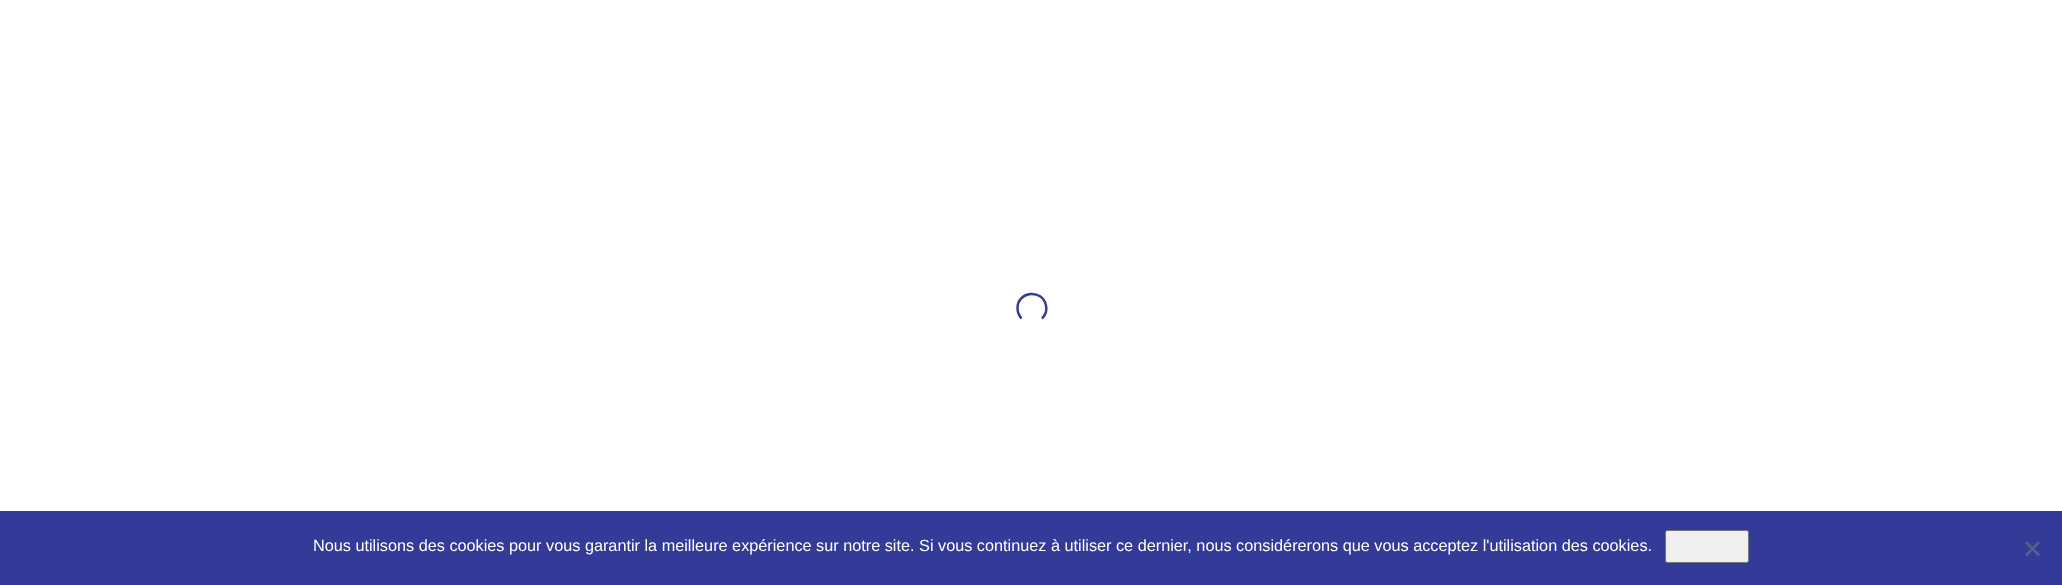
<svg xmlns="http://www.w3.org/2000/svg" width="2062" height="585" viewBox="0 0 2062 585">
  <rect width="100%" height="100%" fill="#ffffff"/>
  <path d="M1021.5 318.5C1019 315.5 1017.5 312 1017.5 308C1017.5 291 1042.5 288.5 1046 305.5C1047 310 1045.5 315 1042 318.5" fill="none" stroke="#333a98" stroke-width="2.5"/>
  <rect x="0" y="511" width="2062" height="74" fill="#333a98"/>
  <text x="313" y="551" font-family="Liberation Sans" font-size="16.25" fill="#ffffff">Nous utilisons des cookies pour vous garantir la meilleure expérience sur notre site. Si vous continuez à utiliser ce dernier, nous considérerons que vous acceptez l'utilisation des cookies.</text>
  <rect x="1665.5" y="530.5" width="83" height="32" rx="2" fill="#efefef" stroke="#767676"/>
  <path d="M2038 541L2040 543L2027 556.5L2025 554.5Z" fill="#5a5d8c"/>
  <path d="M2025 543L2027 541L2040 554.5L2038 556.5Z" fill="#5a5d8c"/>
</svg>
